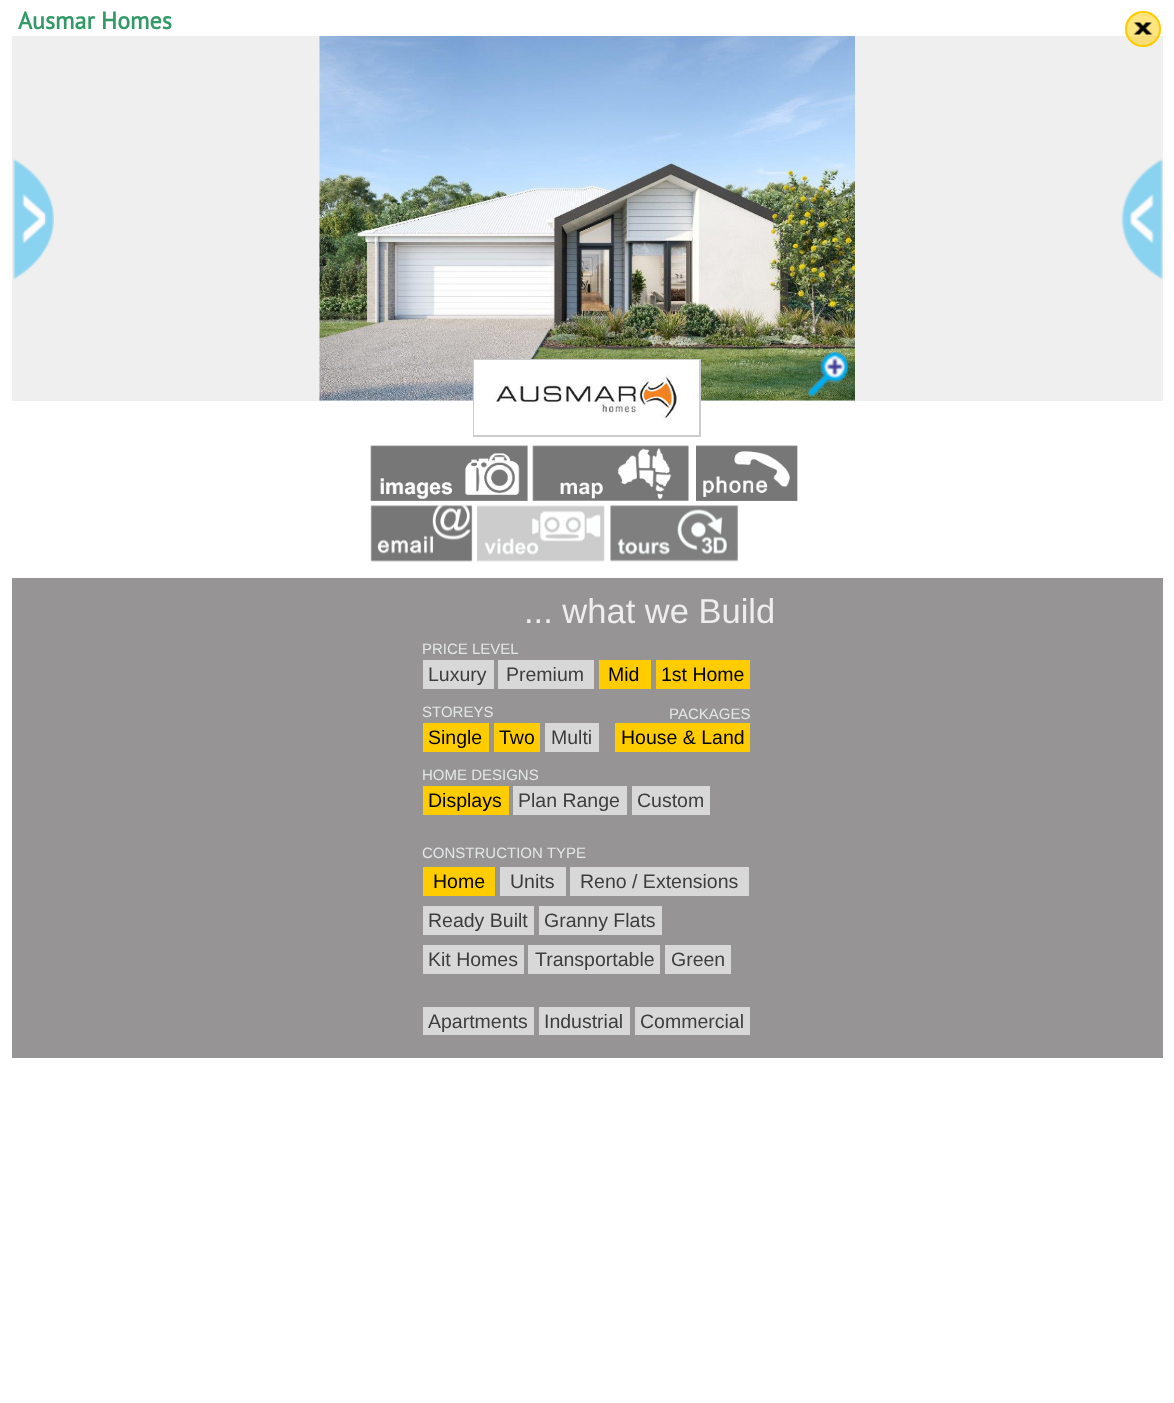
<svg xmlns="http://www.w3.org/2000/svg" width="1174" height="1403" viewBox="0 0 1174 1403">
  <rect width="100%" height="100%" fill="#ffffff"/>
  <text x="18" y="29" font-family="PT Sans" font-size="24" font-weight="bold" fill="#339966">Ausmar Homes</text>
  <rect x="12" y="36" width="1151" height="365" fill="#efefef"/>
  <circle cx="1143" cy="29" r="18" fill="#ffcc00" fill-opacity="0.5"/>
  <image x="1133" y="22" width="20" height="13" href="img1.png"/>
  <circle cx="1143" cy="29" r="17" fill="none" stroke="#ffcc00" stroke-width="2"/>
  <image x="13" y="158" width="41" height="122" href="img2.png"/>
  <image x="319" y="36" width="536" height="365" href="img3.png"/>
  <image x="808" y="352" width="40" height="45" href="img4.png"/>
  <image x="1121" y="158" width="42" height="122" href="img5.png"/>
  <rect x="474" y="360" width="226" height="76" fill="none" stroke="#cccccc" stroke-width="2"/>
  <image x="474" y="360" width="225" height="75" href="img6.png"/>
  <image x="370" y="445" width="158" height="56" href="img7.png"/>
  <image x="532" y="445" width="157" height="56" href="img8.png"/>
  <image x="696" y="445" width="102" height="56" href="img9.png"/>
  <image x="370" y="505" width="103" height="57" href="img10.png"/>
  <image x="477" y="505" width="128" height="57" href="img11.png"/>
  <image x="610" y="505" width="128" height="57" href="img12.png"/>
  <rect x="12" y="578" width="1151" height="480" fill="#969494"/>
  <text x="524" y="623" font-family="Liberation Sans" font-size="34.5" fill="#eeeeee">... what we Build</text>
  <text x="422" y="654" font-family="Liberation Sans" font-size="15" fill="#e3e6e7">PRICE LEVEL</text>
  <rect x="423" y="660" width="71" height="29" fill="#d9d8d8"/>
  <text x="428" y="681" font-family="Liberation Sans" font-size="19.5" fill="#3d3d3d">Luxury</text>
  <rect x="498" y="660" width="96" height="29" fill="#d9d8d8"/>
  <text x="506" y="681" font-family="Liberation Sans" font-size="19.5" fill="#3d3d3d">Premium</text>
  <rect x="599" y="660" width="52" height="29" fill="#ffcc00"/>
  <text x="608" y="681" font-family="Liberation Sans" font-size="19.5" fill="#000000">Mid</text>
  <rect x="656" y="660" width="94" height="29" fill="#ffcc00"/>
  <text x="661" y="681" font-family="Liberation Sans" font-size="19.5" fill="#000000">1st Home</text>
  <text x="422" y="717" font-family="Liberation Sans" font-size="15" fill="#e3e6e7">STOREYS</text>
  <text x="669" y="719" font-family="Liberation Sans" font-size="15" fill="#e3e6e7">PACKAGES</text>
  <rect x="423" y="723" width="66" height="29" fill="#ffcc00"/>
  <text x="428" y="744" font-family="Liberation Sans" font-size="19.5" fill="#000000">Single</text>
  <rect x="494" y="723" width="46" height="29" fill="#ffcc00"/>
  <text x="499" y="744" font-family="Liberation Sans" font-size="19.5" fill="#000000">Two</text>
  <rect x="545" y="723" width="54" height="29" fill="#d9d8d8"/>
  <text x="551" y="744" font-family="Liberation Sans" font-size="19.5" fill="#3d3d3d">Multi</text>
  <rect x="615" y="723" width="135" height="29" fill="#ffcc00"/>
  <text x="621" y="744" font-family="Liberation Sans" font-size="19.5" fill="#000000">House &amp; Land</text>
  <text x="422" y="780" font-family="Liberation Sans" font-size="15" fill="#e3e6e7">HOME DESIGNS</text>
  <rect x="423" y="786" width="86" height="29" fill="#ffcc00"/>
  <text x="428" y="807" font-family="Liberation Sans" font-size="19.5" fill="#000000">Displays</text>
  <rect x="513" y="786" width="114" height="29" fill="#d9d8d8"/>
  <text x="518" y="807" font-family="Liberation Sans" font-size="19.5" fill="#3d3d3d">Plan Range</text>
  <rect x="632" y="786" width="78" height="29" fill="#d9d8d8"/>
  <text x="637" y="807" font-family="Liberation Sans" font-size="19.5" fill="#3d3d3d">Custom</text>
  <text x="422" y="858" font-family="Liberation Sans" font-size="15" fill="#e3e6e7">CONSTRUCTION TYPE</text>
  <rect x="423" y="867" width="72" height="29" fill="#ffcc00"/>
  <text x="433" y="888" font-family="Liberation Sans" font-size="19.5" fill="#000000">Home</text>
  <rect x="500" y="867" width="66" height="29" fill="#d9d8d8"/>
  <text x="510" y="888" font-family="Liberation Sans" font-size="19.5" fill="#3d3d3d">Units</text>
  <rect x="570" y="867" width="179" height="29" fill="#d9d8d8"/>
  <text x="580" y="888" font-family="Liberation Sans" font-size="19.5" fill="#3d3d3d">Reno / Extensions</text>
  <rect x="423" y="906" width="111" height="29" fill="#d9d8d8"/>
  <text x="428" y="927" font-family="Liberation Sans" font-size="19.5" fill="#3d3d3d">Ready Built</text>
  <rect x="539" y="906" width="123" height="29" fill="#d9d8d8"/>
  <text x="544" y="927" font-family="Liberation Sans" font-size="19.5" fill="#3d3d3d">Granny Flats</text>
  <rect x="423" y="945" width="101" height="29" fill="#d9d8d8"/>
  <text x="428" y="966" font-family="Liberation Sans" font-size="19.5" fill="#3d3d3d">Kit Homes</text>
  <rect x="528" y="945" width="132" height="29" fill="#d9d8d8"/>
  <text x="535" y="966" font-family="Liberation Sans" font-size="19.5" fill="#3d3d3d">Transportable</text>
  <rect x="665" y="945" width="66" height="29" fill="#d9d8d8"/>
  <text x="671" y="966" font-family="Liberation Sans" font-size="19.5" fill="#3d3d3d">Green</text>
  <rect x="423" y="1007" width="111" height="28" fill="#d9d8d8"/>
  <text x="428" y="1028" font-family="Liberation Sans" font-size="19.5" fill="#3d3d3d">Apartments</text>
  <rect x="539" y="1007" width="91" height="28" fill="#d9d8d8"/>
  <text x="544" y="1028" font-family="Liberation Sans" font-size="19.5" fill="#3d3d3d">Industrial</text>
  <rect x="635" y="1007" width="115" height="28" fill="#d9d8d8"/>
  <text x="640" y="1028" font-family="Liberation Sans" font-size="19.5" fill="#3d3d3d">Commercial</text>
</svg>
